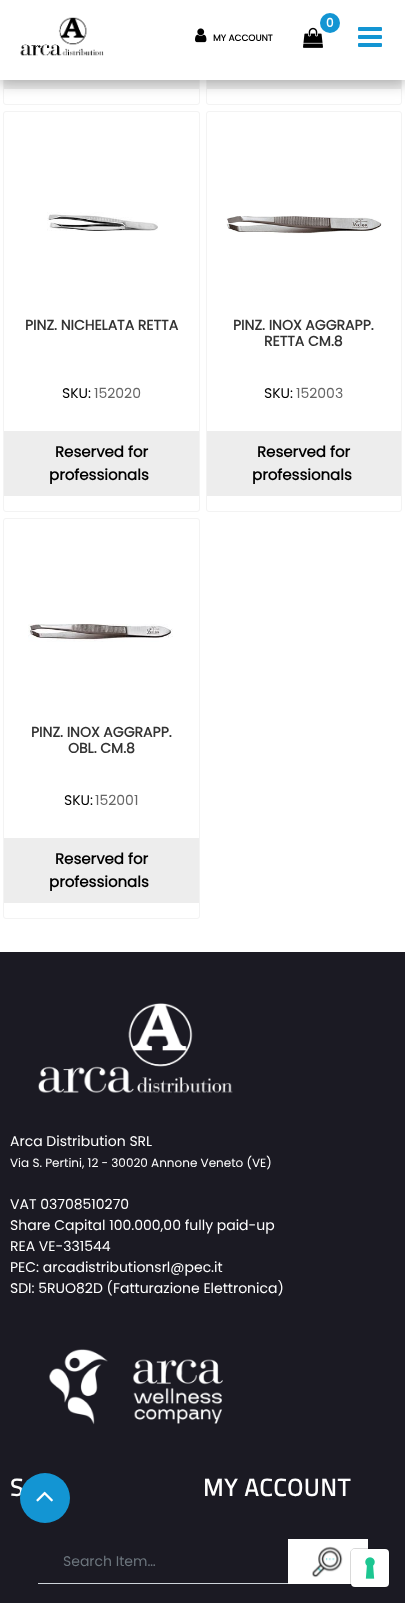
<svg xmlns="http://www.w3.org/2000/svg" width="405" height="1603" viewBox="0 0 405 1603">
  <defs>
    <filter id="blur1" x="-50%" y="-200%" width="200%" height="500%"><feGaussianBlur stdDeviation="7.5"/></filter>
  </defs>
  <rect width="100%" height="100%" fill="#ffffff"/>
  <rect x="3.5" y="-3.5" width="196" height="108" rx="2.5" fill="none" stroke="#f3f3f3"/>
  <rect x="4" y="80" width="195" height="9" fill="#ededed"/>
  <rect x="206.5" y="-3.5" width="195" height="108" rx="2.5" fill="none" stroke="#f3f3f3"/>
  <rect x="207" y="80" width="194" height="9" fill="#ededed"/>
  <rect x="-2" y="-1" width="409" height="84" fill="#000000" fill-opacity="0.3" filter="url(#blur1)"/>
  <rect x="0" y="0" width="405" height="80" fill="#ffffff"/>
  <image x="20" y="17" width="84" height="39" href="img1.png"/>
  <image x="303" y="27" width="20" height="21" href="img2.png"/>
  <circle cx="330" cy="23" r="10" fill="#1395d3"/>
  <text x="326" y="27" font-family="Poppins" font-size="12" font-weight="bold" fill="#ffffff">0</text>
  <image x="195" y="28" width="12" height="15" href="img3.png"/>
  <text x="213" y="41" font-family="Poppins" font-size="9" font-weight="bold" fill="#000000">MY ACCOUNT</text>
  <image x="358" y="27" width="24" height="20" href="img4.png"/>
  <rect x="3.5" y="111.5" width="196" height="400" rx="2.5" fill="none" stroke="#f3f3f3"/>
  <image x="47" y="212" width="111" height="19" href="img5.png"/>
  <text x="25" y="330" font-family="Poppins" font-size="14" font-weight="bold" fill="#333333">PINZ. NICHELATA RETTA</text>
  <text x="62" y="398" font-family="Poppins" font-size="14" fill="#000000">SKU:</text>
  <text x="94" y="398" font-family="Poppins" font-size="14" fill="#666666">152020</text>
  <rect x="4" y="431" width="195" height="65" fill="#ededed"/>
  <text x="55" y="457" font-family="Poppins" font-size="15" font-weight="bold" fill="#000000">Reserved for</text>
  <text x="49" y="480" font-family="Poppins" font-size="15" font-weight="bold" fill="#000000">professionals</text>
  <rect x="206.5" y="111.5" width="195" height="400" rx="2.5" fill="none" stroke="#f3f3f3"/>
  <image x="226" y="216" width="156" height="18" href="img6.png"/>
  <text x="233" y="330" font-family="Poppins" font-size="14" font-weight="bold" fill="#333333">PINZ. INOX AGGRAPP.</text>
  <text x="264" y="346" font-family="Poppins" font-size="14" font-weight="bold" fill="#333333">RETTA CM.8</text>
  <text x="264" y="398" font-family="Poppins" font-size="14" fill="#000000">SKU:</text>
  <text x="296" y="398" font-family="Poppins" font-size="14" fill="#666666">152003</text>
  <rect x="207" y="431" width="194" height="65" fill="#ededed"/>
  <text x="257" y="457" font-family="Poppins" font-size="15" font-weight="bold" fill="#000000">Reserved for</text>
  <text x="252" y="480" font-family="Poppins" font-size="15" font-weight="bold" fill="#000000">professionals</text>
  <rect x="3.5" y="518.5" width="196" height="400" rx="2.5" fill="none" stroke="#f3f3f3"/>
  <image x="28" y="624" width="145" height="18" href="img7.png"/>
  <text x="31" y="737" font-family="Poppins" font-size="14" font-weight="bold" fill="#333333">PINZ. INOX AGGRAPP.</text>
  <text x="68" y="753" font-family="Poppins" font-size="14" font-weight="bold" fill="#333333">OBL. CM.8</text>
  <text x="64" y="805" font-family="Poppins" font-size="14" fill="#000000">SKU:</text>
  <text x="95" y="805" font-family="Poppins" font-size="14" fill="#666666">152001</text>
  <rect x="4" y="838" width="195" height="65" fill="#ededed"/>
  <text x="55" y="864" font-family="Poppins" font-size="15" font-weight="bold" fill="#000000">Reserved for</text>
  <text x="49" y="887" font-family="Poppins" font-size="15" font-weight="bold" fill="#000000">professionals</text>
  <rect x="0" y="952" width="405" height="651" fill="#1b1a23"/>
  <image x="38" y="1003" width="195" height="90" href="img8.png"/>
  <text x="10" y="1146" font-family="Poppins" font-size="14" fill="#ffffff">Arca Distribution SRL</text>
  <text x="10" y="1167" font-family="Poppins" font-size="12" fill="#ffffff">Via S. Pertini, 12 - 30020 Annone Veneto (VE)</text>
  <text x="10" y="1209" font-family="Poppins" font-size="14" fill="#ffffff">VAT 03708510270</text>
  <text x="10" y="1230" font-family="Poppins" font-size="14" fill="#ffffff">Share Capital 100.000,00 fully paid-up</text>
  <text x="10" y="1251" font-family="Poppins" font-size="14" fill="#ffffff">REA VE-331544</text>
  <text x="10" y="1272" font-family="Poppins" font-size="14" fill="#ffffff">PEC: arcadistributionsrl@pec.it</text>
  <text x="10" y="1293" font-family="Poppins" font-size="14" fill="#ffffff">SDI: 5RUO82D (Fatturazione Elettronica)</text>
  <image x="49" y="1349" width="174" height="76" href="img9.png"/>
  <text x="10" y="1496" font-family="Titillium Web" font-size="24" font-weight="bold" letter-spacing="1" fill="#ffffff">S</text>
  <text x="203" y="1496" font-family="Titillium Web" font-size="24" font-weight="bold" letter-spacing="1" fill="#ffffff">MY ACCOUNT</text>
  <circle cx="45" cy="1498" r="25" fill="#1395d3"/>
  <image x="36" y="1491" width="17" height="11" href="img10.png"/>
  <rect x="38" y="1583" width="250" height="1" fill="#ced4da"/>
  <text x="63" y="1566" font-family="Poppins" font-size="14" fill="#6c757d">Search Item…</text>
  <rect x="288" y="1539" width="80" height="45" fill="#ffffff"/>
  <image x="312" y="1546" width="31" height="32" href="img11.png"/>
  <rect x="350.5" y="1548.5" width="39" height="39" rx="4.5" fill="none" stroke="#000000" stroke-opacity="0.15"/>
  <rect x="351" y="1549" width="38" height="38" rx="4" fill="#ffffff"/>
  <image x="365" y="1557" width="10" height="22" href="img12.png"/>
</svg>
